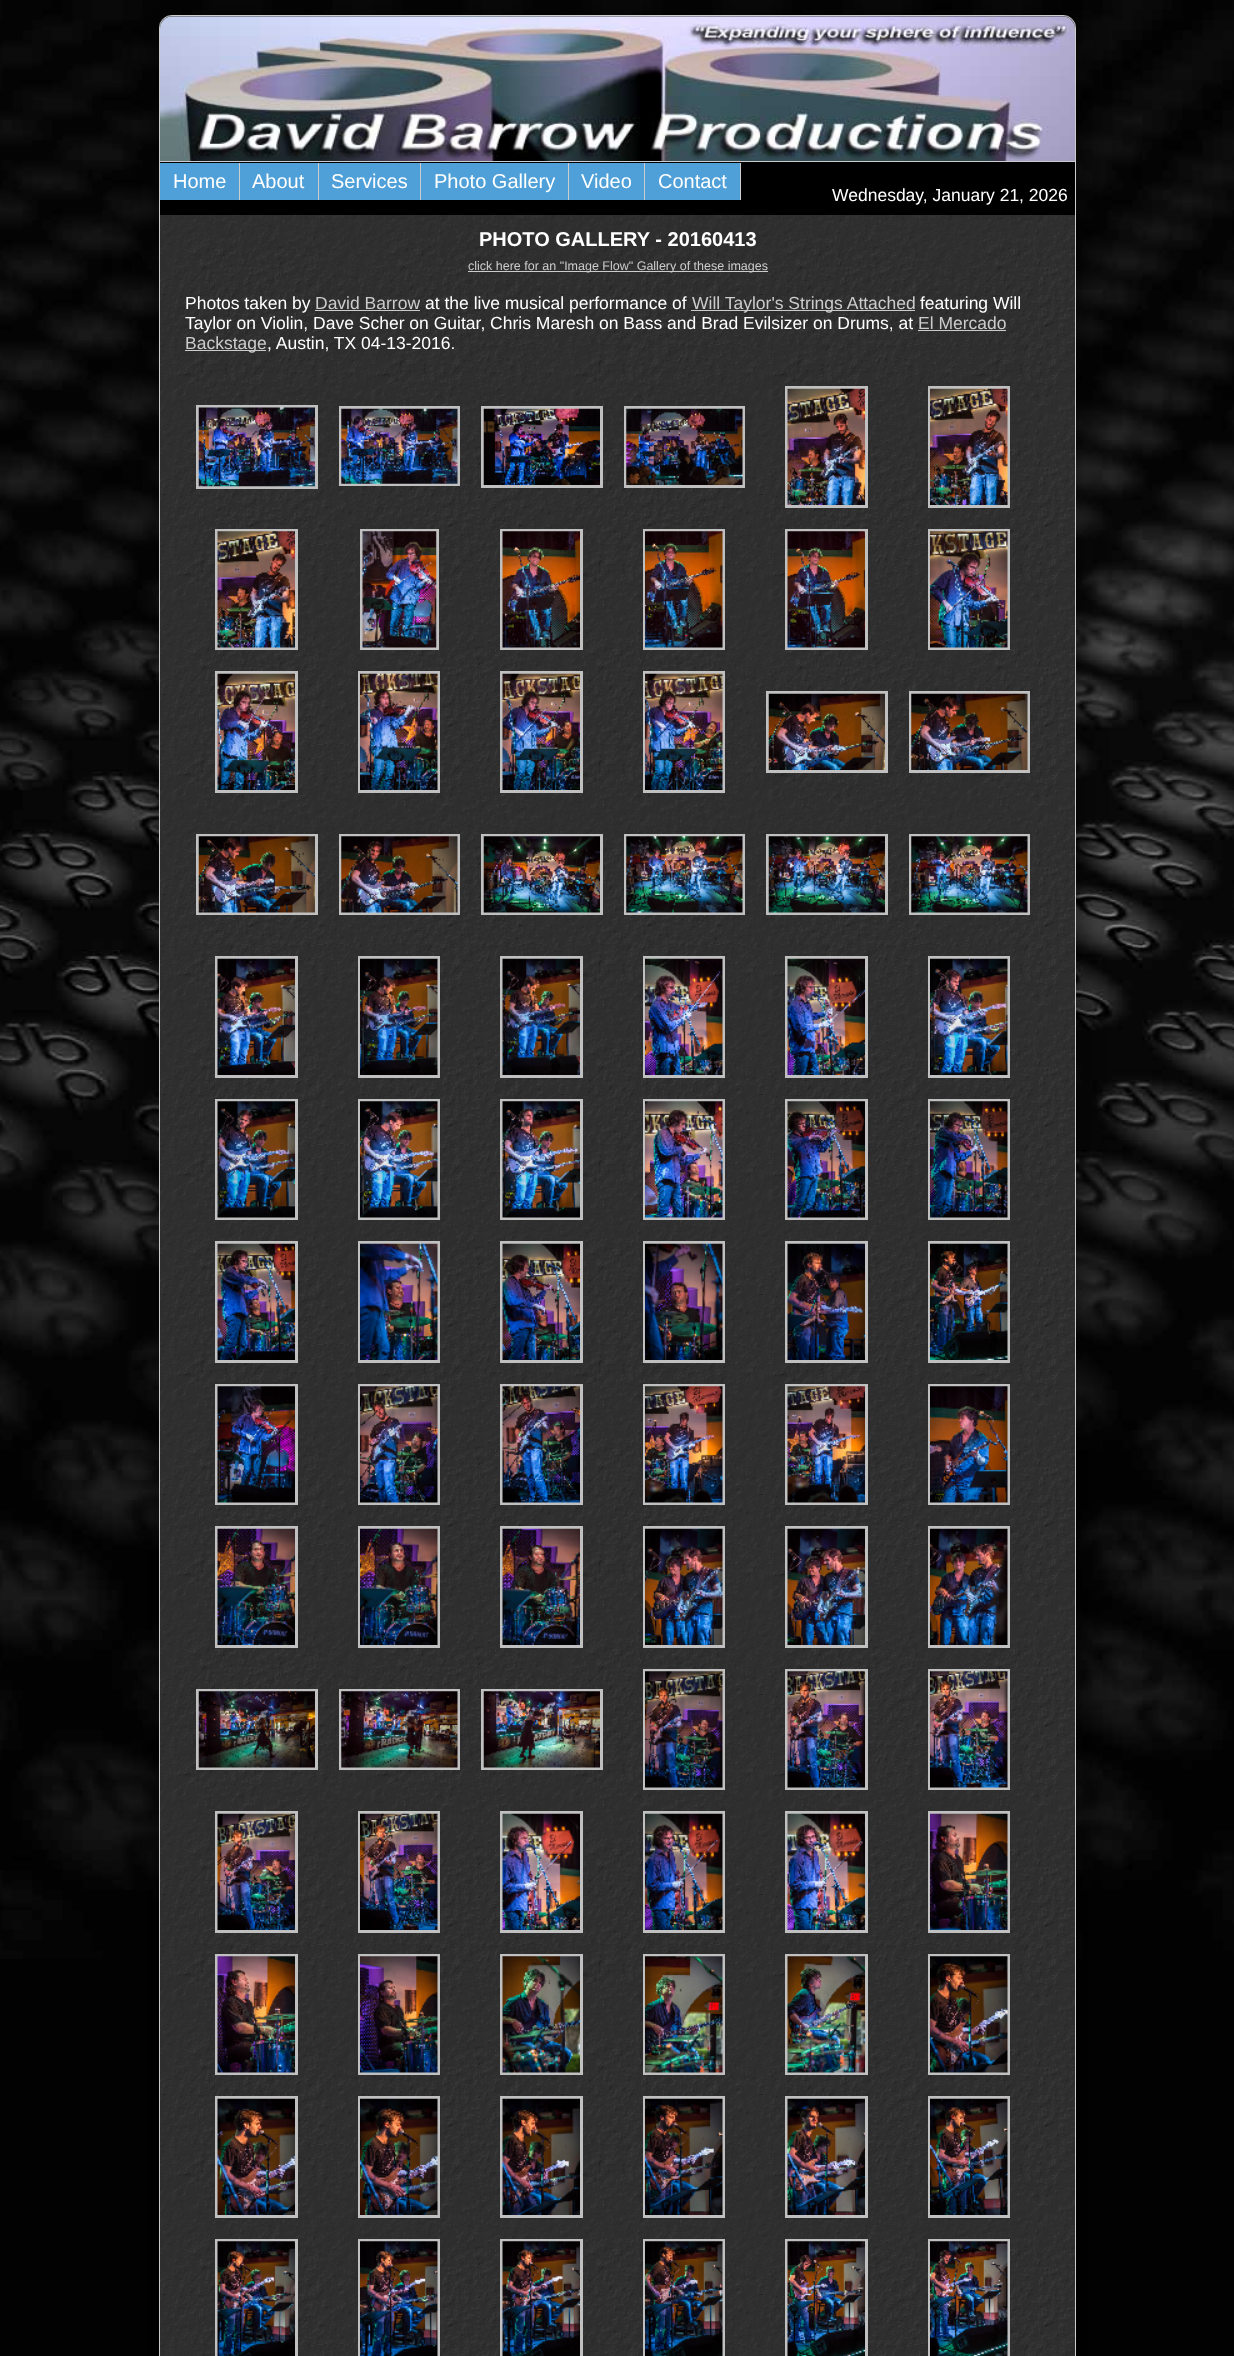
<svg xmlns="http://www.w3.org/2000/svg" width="1234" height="2356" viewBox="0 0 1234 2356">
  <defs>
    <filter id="blur1" x="-50%" y="-200%" width="200%" height="500%"><feGaussianBlur stdDeviation="24"/></filter>
  </defs>
  <rect width="100%" height="100%" fill="#020202"/>
  <image x="0" y="0" width="1234" height="1959" href="img1.png"/>
  <rect x="159" y="15" width="917" height="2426" rx="13" fill="#000000" fill-opacity="0.8" filter="url(#blur1)"/>
  <image x="159" y="15" width="917" height="2341" href="img2.png"/>
  <rect x="159.5" y="15.5" width="916" height="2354" rx="12.5" fill="none" stroke="#cccccc"/>
  <image x="160" y="16" width="915" height="145" href="img3.png"/>
  <rect x="160" y="162" width="915" height="53" fill="#000000"/>
  <rect x="160" y="161" width="915" height="1" fill="#cccccc"/>
  <rect x="160" y="163" width="79" height="37" fill="#4fa0d8"/>
  <rect x="239" y="163" width="1" height="37" fill="#cccccc"/>
  <text x="173" y="188" font-family="Liberation Sans" font-size="20" fill="#ffffff">Home</text>
  <rect x="240" y="163" width="78" height="37" fill="#4fa0d8"/>
  <rect x="318" y="163" width="1" height="37" fill="#cccccc"/>
  <text x="252" y="188" font-family="Liberation Sans" font-size="20" fill="#ffffff">About</text>
  <rect x="319" y="163" width="101" height="37" fill="#4fa0d8"/>
  <rect x="420" y="163" width="1" height="37" fill="#cccccc"/>
  <text x="331" y="188" font-family="Liberation Sans" font-size="20" fill="#ffffff">Services</text>
  <rect x="421" y="163" width="147" height="37" fill="#4fa0d8"/>
  <rect x="568" y="163" width="1" height="37" fill="#cccccc"/>
  <text x="434" y="188" font-family="Liberation Sans" font-size="20" fill="#ffffff">Photo Gallery</text>
  <rect x="569" y="163" width="75" height="37" fill="#4fa0d8"/>
  <rect x="644" y="163" width="1" height="37" fill="#cccccc"/>
  <text x="581" y="188" font-family="Liberation Sans" font-size="20" fill="#ffffff">Video</text>
  <rect x="645" y="163" width="95" height="37" fill="#4fa0d8"/>
  <rect x="740" y="163" width="1" height="37" fill="#cccccc"/>
  <text x="658" y="188" font-family="Liberation Sans" font-size="20" fill="#ffffff">Contact</text>
  <text x="832" y="201" font-family="Liberation Sans" font-size="17.5" fill="#ffffff">Wednesday, January 21, 2026</text>
  <text x="479" y="246" font-family="Liberation Sans" font-size="20" font-weight="bold" fill="#ffffff">PHOTO GALLERY - 20160413</text>
  <rect x="468" y="271" width="300" height="1" fill="#cccccc"/>
  <text x="468" y="270" font-family="Liberation Sans" font-size="12.5" fill="#cccccc">click here for an "Image Flow" Gallery of these images</text>
  <text x="185" y="309" font-family="Liberation Sans" font-size="17.5" fill="#ffffff">Photos taken by</text>
  <text x="315" y="309" font-family="Liberation Sans" font-size="17.5" fill="#cccccc">David Barrow</text>
  <rect x="315" y="310" width="105" height="1" fill="#cccccc"/>
  <text x="425" y="309" font-family="Liberation Sans" font-size="17.5" fill="#ffffff">at the live musical performance of</text>
  <rect x="691" y="310" width="224" height="1" fill="#cccccc"/>
  <text x="692" y="309" font-family="Liberation Sans" font-size="17.5" fill="#cccccc">Will Taylor's Strings Attached</text>
  <text x="920" y="309" font-family="Liberation Sans" font-size="17.5" fill="#ffffff">featuring Will</text>
  <text x="185" y="329" font-family="Liberation Sans" font-size="17.5" fill="#ffffff">Taylor on Violin, Dave Scher on Guitar, Chris Maresh on Bass and Brad Evilsizer on Drums, at</text>
  <text x="918" y="329" font-family="Liberation Sans" font-size="17.5" fill="#cccccc">El Mercado</text>
  <rect x="918" y="330" width="88" height="1" fill="#cccccc"/>
  <rect x="185" y="350" width="81" height="1" fill="#cccccc"/>
  <text x="185" y="349" font-family="Liberation Sans" font-size="17.5" fill="#cccccc">Backstage</text>
  <text x="267" y="349" font-family="Liberation Sans" font-size="17.5" fill="#ffffff">, Austin, TX 04-13-2016.</text>
  <rect x="197.5" y="406.5" width="119" height="81" fill="none" stroke="#c0c0c0" stroke-width="3"/>
  <image x="198" y="407" width="117" height="80" href="img4.png"/>
  <rect x="340.5" y="407.5" width="118" height="77" fill="none" stroke="#c0c0c0" stroke-width="3"/>
  <image x="341" y="408" width="117" height="76" href="img5.png"/>
  <rect x="482.5" y="407.5" width="119" height="79" fill="none" stroke="#c0c0c0" stroke-width="3"/>
  <image x="483" y="408" width="117" height="77" href="img6.png"/>
  <rect x="625.5" y="407.5" width="118" height="79" fill="none" stroke="#c0c0c0" stroke-width="3"/>
  <image x="626" y="408" width="117" height="77" href="img7.png"/>
  <rect x="786.5" y="387.5" width="80" height="119" fill="none" stroke="#c0c0c0" stroke-width="3"/>
  <image x="787" y="388" width="78" height="117" href="img8.png"/>
  <rect x="929.5" y="387.5" width="79" height="119" fill="none" stroke="#c0c0c0" stroke-width="3"/>
  <image x="930" y="388" width="78" height="117" href="img9.png"/>
  <rect x="216.5" y="530.5" width="80" height="118" fill="none" stroke="#c0c0c0" stroke-width="3"/>
  <image x="217" y="531" width="78" height="117" href="img10.png"/>
  <rect x="361.5" y="530.5" width="76" height="118" fill="none" stroke="#c0c0c0" stroke-width="3"/>
  <image x="362" y="531" width="75" height="117" href="img11.png"/>
  <rect x="501.5" y="530.5" width="80" height="118" fill="none" stroke="#c0c0c0" stroke-width="3"/>
  <image x="502" y="531" width="78" height="117" href="img12.png"/>
  <rect x="644.5" y="530.5" width="79" height="118" fill="none" stroke="#c0c0c0" stroke-width="3"/>
  <image x="645" y="531" width="78" height="117" href="img13.png"/>
  <rect x="786.5" y="530.5" width="80" height="118" fill="none" stroke="#c0c0c0" stroke-width="3"/>
  <image x="787" y="531" width="78" height="117" href="img14.png"/>
  <rect x="929.5" y="530.5" width="79" height="118" fill="none" stroke="#c0c0c0" stroke-width="3"/>
  <image x="930" y="531" width="78" height="117" href="img15.png"/>
  <rect x="216.5" y="672.5" width="80" height="119" fill="none" stroke="#c0c0c0" stroke-width="3"/>
  <image x="217" y="673" width="78" height="117" href="img16.png"/>
  <rect x="359.5" y="672.5" width="79" height="119" fill="none" stroke="#c0c0c0" stroke-width="3"/>
  <image x="360" y="673" width="78" height="117" href="img17.png"/>
  <rect x="501.5" y="672.5" width="80" height="119" fill="none" stroke="#c0c0c0" stroke-width="3"/>
  <image x="502" y="673" width="78" height="117" href="img18.png"/>
  <rect x="644.5" y="672.5" width="79" height="119" fill="none" stroke="#c0c0c0" stroke-width="3"/>
  <image x="645" y="673" width="78" height="117" href="img19.png"/>
  <rect x="767.5" y="692.5" width="119" height="79" fill="none" stroke="#c0c0c0" stroke-width="3"/>
  <image x="768" y="693" width="117" height="77" href="img20.png"/>
  <rect x="910.5" y="692.5" width="118" height="79" fill="none" stroke="#c0c0c0" stroke-width="3"/>
  <image x="911" y="693" width="117" height="77" href="img21.png"/>
  <rect x="197.5" y="835.5" width="119" height="78" fill="none" stroke="#c0c0c0" stroke-width="3"/>
  <image x="198" y="836" width="117" height="77" href="img22.png"/>
  <rect x="340.5" y="835.5" width="118" height="78" fill="none" stroke="#c0c0c0" stroke-width="3"/>
  <image x="341" y="836" width="117" height="77" href="img23.png"/>
  <rect x="482.5" y="835.5" width="119" height="78" fill="none" stroke="#c0c0c0" stroke-width="3"/>
  <image x="483" y="836" width="117" height="77" href="img24.png"/>
  <rect x="625.5" y="835.5" width="118" height="78" fill="none" stroke="#c0c0c0" stroke-width="3"/>
  <image x="626" y="836" width="117" height="77" href="img25.png"/>
  <rect x="767.5" y="835.5" width="119" height="78" fill="none" stroke="#c0c0c0" stroke-width="3"/>
  <image x="768" y="836" width="117" height="77" href="img26.png"/>
  <rect x="910.5" y="835.5" width="118" height="78" fill="none" stroke="#c0c0c0" stroke-width="3"/>
  <image x="911" y="836" width="117" height="77" href="img27.png"/>
  <rect x="216.5" y="957.5" width="80" height="119" fill="none" stroke="#c0c0c0" stroke-width="3"/>
  <image x="217" y="958" width="78" height="117" href="img28.png"/>
  <rect x="359.5" y="957.5" width="79" height="119" fill="none" stroke="#c0c0c0" stroke-width="3"/>
  <image x="360" y="958" width="78" height="117" href="img29.png"/>
  <rect x="501.5" y="957.5" width="80" height="119" fill="none" stroke="#c0c0c0" stroke-width="3"/>
  <image x="502" y="958" width="78" height="117" href="img30.png"/>
  <rect x="644.5" y="957.5" width="79" height="119" fill="none" stroke="#c0c0c0" stroke-width="3"/>
  <image x="645" y="958" width="78" height="117" href="img31.png"/>
  <rect x="786.5" y="957.5" width="80" height="119" fill="none" stroke="#c0c0c0" stroke-width="3"/>
  <image x="787" y="958" width="78" height="117" href="img32.png"/>
  <rect x="929.5" y="957.5" width="79" height="119" fill="none" stroke="#c0c0c0" stroke-width="3"/>
  <image x="930" y="958" width="78" height="117" href="img33.png"/>
  <rect x="216.5" y="1100.5" width="80" height="118" fill="none" stroke="#c0c0c0" stroke-width="3"/>
  <image x="217" y="1101" width="78" height="117" href="img34.png"/>
  <rect x="359.5" y="1100.5" width="79" height="118" fill="none" stroke="#c0c0c0" stroke-width="3"/>
  <image x="360" y="1101" width="78" height="117" href="img35.png"/>
  <rect x="501.5" y="1100.5" width="80" height="118" fill="none" stroke="#c0c0c0" stroke-width="3"/>
  <image x="502" y="1101" width="78" height="117" href="img36.png"/>
  <rect x="644.5" y="1100.5" width="79" height="118" fill="none" stroke="#c0c0c0" stroke-width="3"/>
  <image x="645" y="1101" width="78" height="117" href="img37.png"/>
  <rect x="786.5" y="1100.5" width="80" height="118" fill="none" stroke="#c0c0c0" stroke-width="3"/>
  <image x="787" y="1101" width="78" height="117" href="img38.png"/>
  <rect x="929.5" y="1100.5" width="79" height="118" fill="none" stroke="#c0c0c0" stroke-width="3"/>
  <image x="930" y="1101" width="78" height="117" href="img39.png"/>
  <rect x="216.5" y="1242.5" width="80" height="119" fill="none" stroke="#c0c0c0" stroke-width="3"/>
  <image x="217" y="1243" width="78" height="117" href="img40.png"/>
  <rect x="359.5" y="1242.5" width="79" height="119" fill="none" stroke="#c0c0c0" stroke-width="3"/>
  <image x="360" y="1243" width="78" height="117" href="img41.png"/>
  <rect x="501.5" y="1242.5" width="80" height="119" fill="none" stroke="#c0c0c0" stroke-width="3"/>
  <image x="502" y="1243" width="78" height="117" href="img42.png"/>
  <rect x="644.5" y="1242.5" width="79" height="119" fill="none" stroke="#c0c0c0" stroke-width="3"/>
  <image x="645" y="1243" width="78" height="117" href="img43.png"/>
  <rect x="786.5" y="1242.5" width="80" height="119" fill="none" stroke="#c0c0c0" stroke-width="3"/>
  <image x="787" y="1243" width="78" height="117" href="img44.png"/>
  <rect x="929.5" y="1242.5" width="79" height="119" fill="none" stroke="#c0c0c0" stroke-width="3"/>
  <image x="930" y="1243" width="78" height="117" href="img45.png"/>
  <rect x="216.5" y="1385.5" width="80" height="118" fill="none" stroke="#c0c0c0" stroke-width="3"/>
  <image x="217" y="1386" width="78" height="117" href="img46.png"/>
  <rect x="359.5" y="1385.5" width="79" height="118" fill="none" stroke="#c0c0c0" stroke-width="3"/>
  <image x="360" y="1386" width="78" height="117" href="img47.png"/>
  <rect x="501.5" y="1385.5" width="80" height="118" fill="none" stroke="#c0c0c0" stroke-width="3"/>
  <image x="502" y="1386" width="78" height="117" href="img48.png"/>
  <rect x="644.5" y="1385.5" width="79" height="118" fill="none" stroke="#c0c0c0" stroke-width="3"/>
  <image x="645" y="1386" width="78" height="117" href="img49.png"/>
  <rect x="786.5" y="1385.5" width="80" height="118" fill="none" stroke="#c0c0c0" stroke-width="3"/>
  <image x="787" y="1386" width="78" height="117" href="img50.png"/>
  <rect x="929.5" y="1385.5" width="79" height="118" fill="none" stroke="#c0c0c0" stroke-width="3"/>
  <image x="930" y="1386" width="78" height="117" href="img51.png"/>
  <rect x="216.5" y="1527.5" width="80" height="119" fill="none" stroke="#c0c0c0" stroke-width="3"/>
  <image x="217" y="1528" width="78" height="117" href="img52.png"/>
  <rect x="359.5" y="1527.5" width="79" height="119" fill="none" stroke="#c0c0c0" stroke-width="3"/>
  <image x="360" y="1528" width="78" height="117" href="img53.png"/>
  <rect x="501.5" y="1527.5" width="80" height="119" fill="none" stroke="#c0c0c0" stroke-width="3"/>
  <image x="502" y="1528" width="78" height="117" href="img54.png"/>
  <rect x="644.5" y="1527.5" width="79" height="119" fill="none" stroke="#c0c0c0" stroke-width="3"/>
  <image x="645" y="1528" width="78" height="117" href="img55.png"/>
  <rect x="786.5" y="1527.5" width="80" height="119" fill="none" stroke="#c0c0c0" stroke-width="3"/>
  <image x="787" y="1528" width="78" height="117" href="img56.png"/>
  <rect x="929.5" y="1527.5" width="79" height="119" fill="none" stroke="#c0c0c0" stroke-width="3"/>
  <image x="930" y="1528" width="78" height="117" href="img57.png"/>
  <rect x="197.5" y="1690.5" width="119" height="78" fill="none" stroke="#c0c0c0" stroke-width="3"/>
  <image x="198" y="1691" width="117" height="77" href="img58.png"/>
  <rect x="340.5" y="1690.5" width="118" height="78" fill="none" stroke="#c0c0c0" stroke-width="3"/>
  <image x="341" y="1691" width="117" height="77" href="img59.png"/>
  <rect x="482.5" y="1690.5" width="119" height="78" fill="none" stroke="#c0c0c0" stroke-width="3"/>
  <image x="483" y="1691" width="117" height="77" href="img60.png"/>
  <rect x="644.5" y="1670.5" width="79" height="118" fill="none" stroke="#c0c0c0" stroke-width="3"/>
  <image x="645" y="1671" width="78" height="117" href="img61.png"/>
  <rect x="786.5" y="1670.5" width="80" height="118" fill="none" stroke="#c0c0c0" stroke-width="3"/>
  <image x="787" y="1671" width="78" height="117" href="img62.png"/>
  <rect x="929.5" y="1670.5" width="79" height="118" fill="none" stroke="#c0c0c0" stroke-width="3"/>
  <image x="930" y="1671" width="78" height="117" href="img63.png"/>
  <rect x="216.5" y="1812.5" width="80" height="119" fill="none" stroke="#c0c0c0" stroke-width="3"/>
  <image x="217" y="1813" width="78" height="117" href="img64.png"/>
  <rect x="359.5" y="1812.5" width="79" height="119" fill="none" stroke="#c0c0c0" stroke-width="3"/>
  <image x="360" y="1813" width="78" height="117" href="img65.png"/>
  <rect x="501.5" y="1812.5" width="80" height="119" fill="none" stroke="#c0c0c0" stroke-width="3"/>
  <image x="502" y="1813" width="78" height="117" href="img66.png"/>
  <rect x="644.5" y="1812.5" width="79" height="119" fill="none" stroke="#c0c0c0" stroke-width="3"/>
  <image x="645" y="1813" width="78" height="117" href="img67.png"/>
  <rect x="786.5" y="1812.5" width="80" height="119" fill="none" stroke="#c0c0c0" stroke-width="3"/>
  <image x="787" y="1813" width="78" height="117" href="img68.png"/>
  <rect x="929.5" y="1812.5" width="79" height="119" fill="none" stroke="#c0c0c0" stroke-width="3"/>
  <image x="930" y="1813" width="78" height="117" href="img69.png"/>
  <rect x="216.5" y="1955.5" width="80" height="118" fill="none" stroke="#c0c0c0" stroke-width="3"/>
  <image x="217" y="1956" width="78" height="117" href="img70.png"/>
  <rect x="359.5" y="1955.5" width="79" height="118" fill="none" stroke="#c0c0c0" stroke-width="3"/>
  <image x="360" y="1956" width="78" height="117" href="img71.png"/>
  <rect x="501.5" y="1955.5" width="80" height="118" fill="none" stroke="#c0c0c0" stroke-width="3"/>
  <image x="502" y="1956" width="78" height="117" href="img72.png"/>
  <rect x="644.5" y="1955.5" width="79" height="118" fill="none" stroke="#c0c0c0" stroke-width="3"/>
  <image x="645" y="1956" width="78" height="117" href="img73.png"/>
  <rect x="786.5" y="1955.5" width="80" height="118" fill="none" stroke="#c0c0c0" stroke-width="3"/>
  <image x="787" y="1956" width="78" height="117" href="img74.png"/>
  <rect x="929.5" y="1955.5" width="79" height="118" fill="none" stroke="#c0c0c0" stroke-width="3"/>
  <image x="930" y="1956" width="78" height="117" href="img75.png"/>
  <rect x="216.5" y="2097.5" width="80" height="119" fill="none" stroke="#c0c0c0" stroke-width="3"/>
  <image x="217" y="2098" width="78" height="117" href="img76.png"/>
  <rect x="359.5" y="2097.5" width="79" height="119" fill="none" stroke="#c0c0c0" stroke-width="3"/>
  <image x="360" y="2098" width="78" height="117" href="img77.png"/>
  <rect x="501.5" y="2097.5" width="80" height="119" fill="none" stroke="#c0c0c0" stroke-width="3"/>
  <image x="502" y="2098" width="78" height="117" href="img78.png"/>
  <rect x="644.5" y="2097.5" width="79" height="119" fill="none" stroke="#c0c0c0" stroke-width="3"/>
  <image x="645" y="2098" width="78" height="117" href="img79.png"/>
  <rect x="786.5" y="2097.5" width="80" height="119" fill="none" stroke="#c0c0c0" stroke-width="3"/>
  <image x="787" y="2098" width="78" height="117" href="img80.png"/>
  <rect x="929.5" y="2097.5" width="79" height="119" fill="none" stroke="#c0c0c0" stroke-width="3"/>
  <image x="930" y="2098" width="78" height="117" href="img81.png"/>
  <rect x="216.5" y="2240.5" width="80" height="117" fill="none" stroke="#c0c0c0" stroke-width="3"/>
  <image x="217" y="2241" width="78" height="115" href="img82.png"/>
  <rect x="359.5" y="2240.5" width="79" height="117" fill="none" stroke="#c0c0c0" stroke-width="3"/>
  <image x="360" y="2241" width="78" height="115" href="img83.png"/>
  <rect x="501.5" y="2240.5" width="80" height="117" fill="none" stroke="#c0c0c0" stroke-width="3"/>
  <image x="502" y="2241" width="78" height="115" href="img84.png"/>
  <rect x="644.5" y="2240.5" width="79" height="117" fill="none" stroke="#c0c0c0" stroke-width="3"/>
  <image x="645" y="2241" width="78" height="115" href="img85.png"/>
  <rect x="786.5" y="2240.5" width="80" height="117" fill="none" stroke="#c0c0c0" stroke-width="3"/>
  <image x="787" y="2241" width="78" height="115" href="img86.png"/>
  <rect x="929.5" y="2240.5" width="79" height="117" fill="none" stroke="#c0c0c0" stroke-width="3"/>
  <image x="930" y="2241" width="78" height="115" href="img87.png"/>
</svg>
